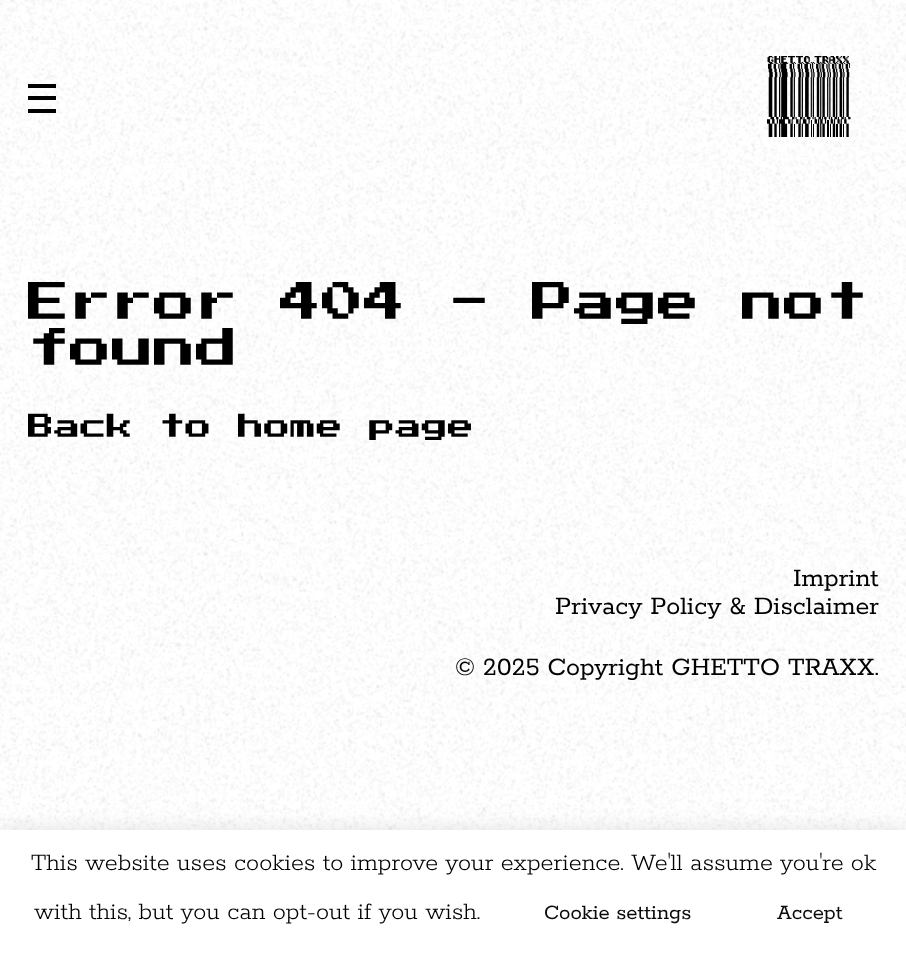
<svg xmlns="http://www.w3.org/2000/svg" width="906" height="968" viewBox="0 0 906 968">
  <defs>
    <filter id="blur1" x="-50%" y="-200%" width="200%" height="500%"><feGaussianBlur stdDeviation="9"/></filter>
  </defs>
  <rect width="100%" height="100%" fill="#ffffff"/>
  <image x="0" y="0" width="906" height="830" href="img2.png"/>
  <rect x="28" y="84" width="28" height="4" fill="#000000"/>
  <rect x="28" y="96" width="28" height="4" fill="#000000"/>
  <rect x="28" y="109" width="28" height="4" fill="#000000"/>
  <image x="767" y="56" width="84" height="81" href="img1.png"/>
  <text x="28" y="324" font-family="'Press Start 2P'" font-size="42" fill="#000000">Error 404 - Page not</text>
  <text x="28" y="370" font-family="'Press Start 2P'" font-size="42" fill="#000000">found</text>
  <text x="28" y="440" font-family="'Press Start 2P'" font-size="26.25" fill="#000000">Back to home page</text>
  <text x="793" y="586" font-family="Rokkitt" font-size="28" fill="#000000">Imprint</text>
  <text x="555" y="614" font-family="Rokkitt" font-size="28" fill="#000000">Privacy Policy &amp; Disclaimer</text>
  <text x="455" y="675" font-family="Rokkitt" font-size="28" fill="#000000">© 2025 Copyright GHETTO TRAXX.</text>
  <rect x="0" y="828" width="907" height="140" fill="#acabab" fill-opacity="0.3" filter="url(#blur1)"/>
  <rect x="0" y="830" width="906" height="138" fill="#ffffff"/>
  <text x="31" y="870" font-family="Rokkitt" font-size="26.25" font-weight="300" fill="#000000">This website uses cookies to improve your experience. We'll assume you're ok</text>
  <text x="34" y="919" font-family="Rokkitt" font-size="26.25" font-weight="300" fill="#000000">with this, but you can opt-out if you wish.</text>
  <text x="544" y="919" font-family="Rokkitt" font-size="22.75" fill="#0a0a0a">Cookie settings</text>
  <text x="777" y="919" font-family="Rokkitt" font-size="22.75" fill="#0a0a0a">Accept</text>
</svg>
